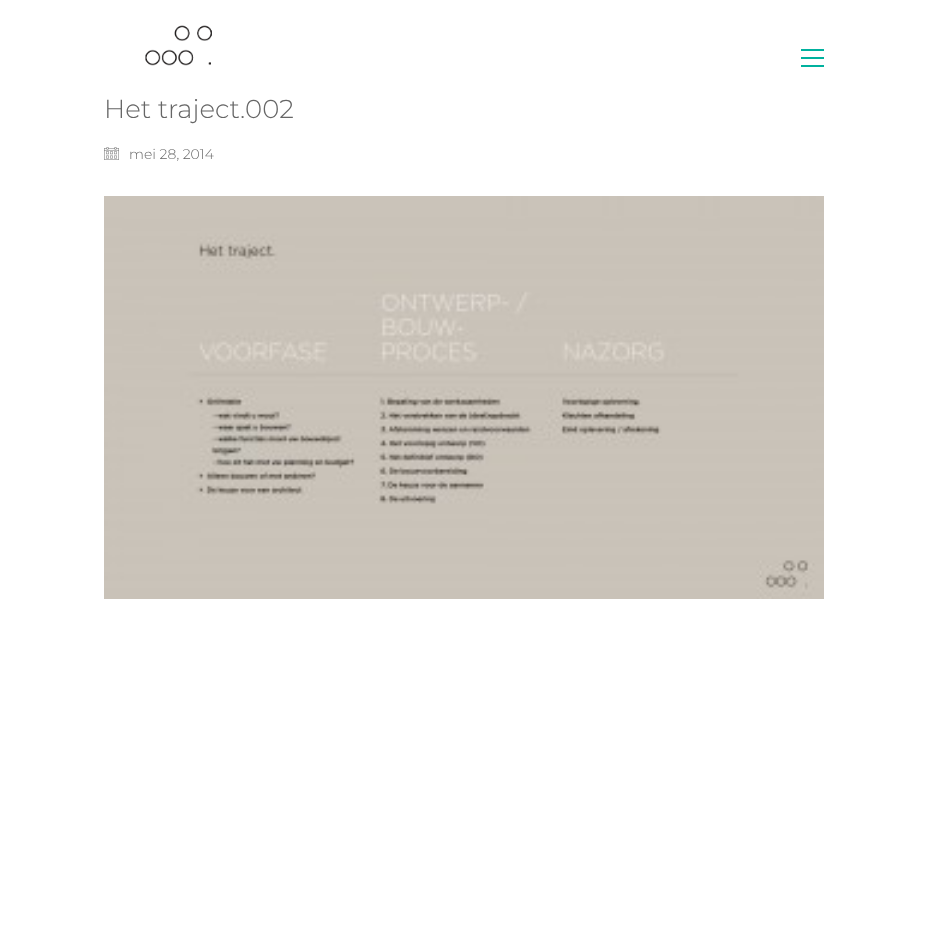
<svg xmlns="http://www.w3.org/2000/svg" width="928" height="942" viewBox="0 0 928 942">
  <rect width="100%" height="100%" fill="#ffffff"/>
  <image x="145" y="25" width="67" height="41" href="img1.png"/>
  <rect x="801" y="49" width="23" height="2" fill="#00b19e"/>
  <rect x="801" y="57" width="23" height="2" fill="#00b19e"/>
  <rect x="801" y="65" width="23" height="2" fill="#00b19e"/>
  <text x="104" y="118" font-family="Montserrat" font-size="26" font-weight="300" fill="#666666">Het traject.002</text>
  <image x="104" y="147" width="15" height="13" href="img2.png"/>
  <text x="129" y="159" font-family="Montserrat" font-size="14" font-weight="300" fill="#666666">mei 28, 2014</text>
  <image x="104" y="196" width="720" height="403" href="img3.png"/>
</svg>
